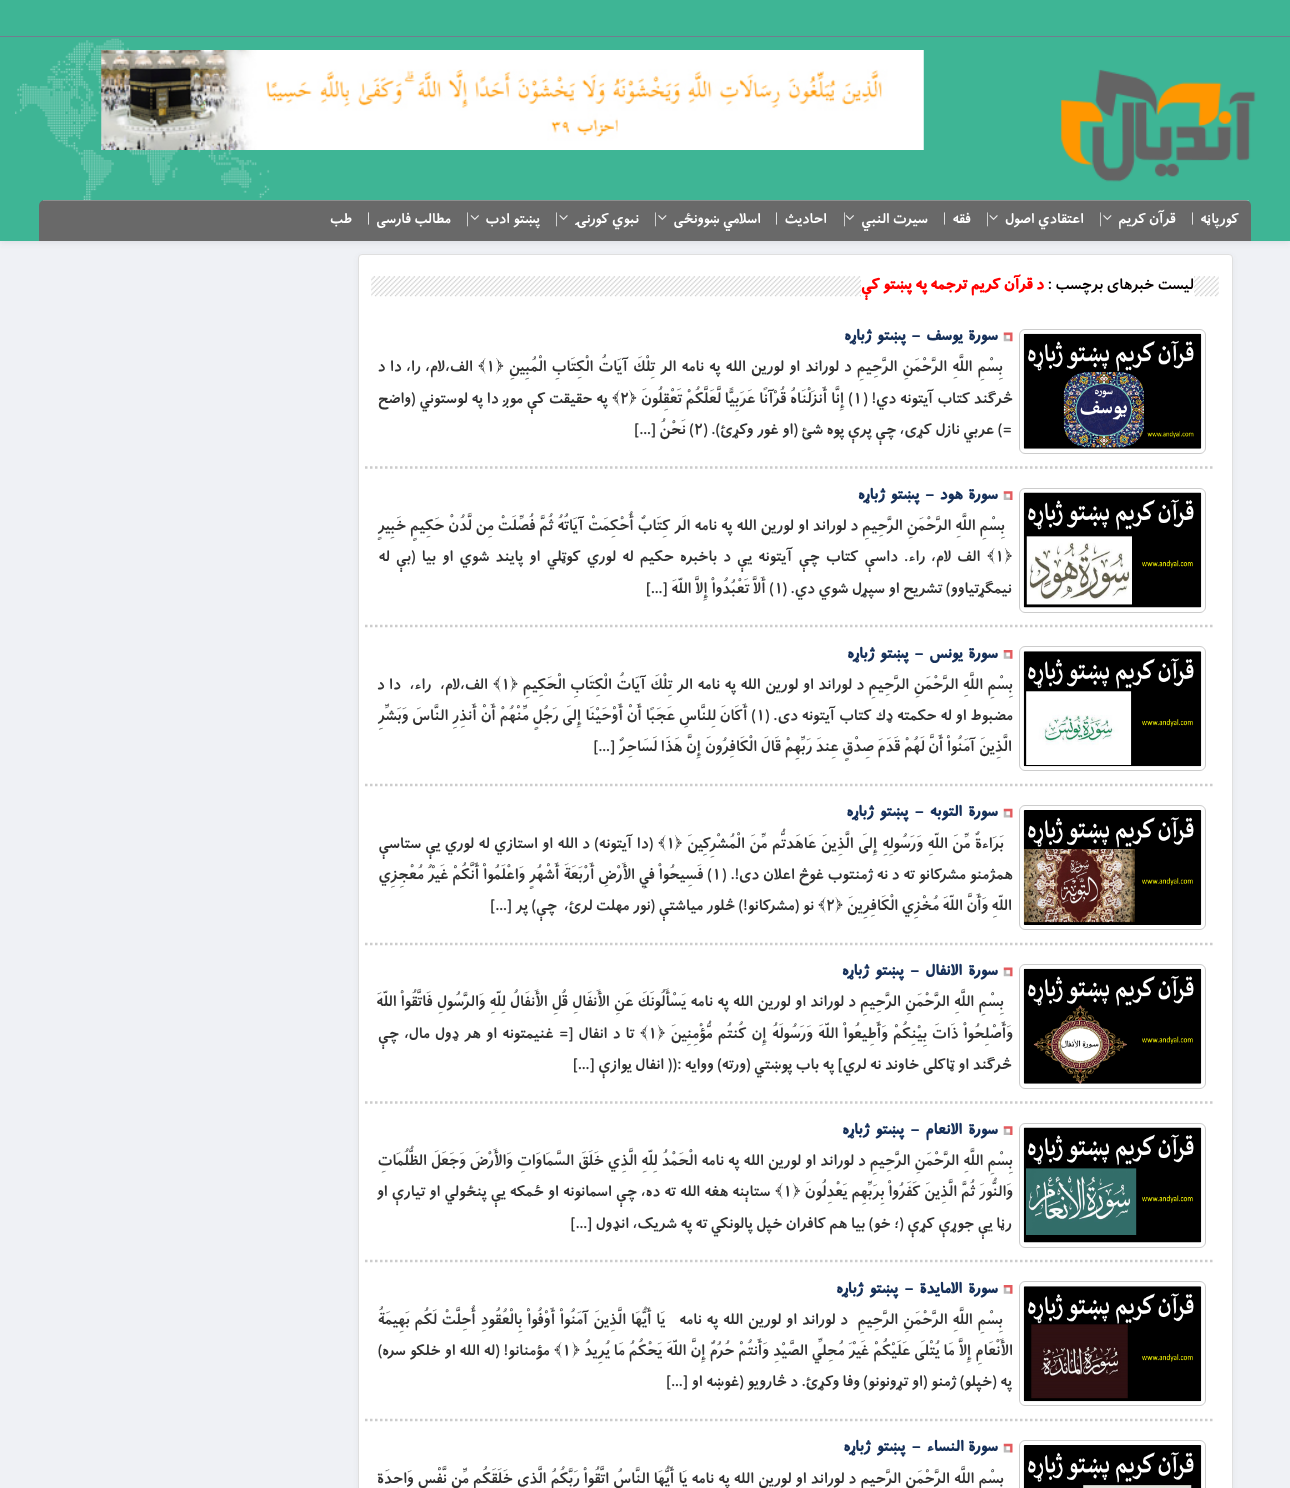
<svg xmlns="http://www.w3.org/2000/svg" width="1290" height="1488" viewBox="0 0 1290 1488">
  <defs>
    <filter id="blur1" x="-50%" y="-200%" width="200%" height="500%"><feGaussianBlur stdDeviation="2.5"/></filter>
  </defs>
  <rect width="100%" height="100%" fill="#eff1f5"/>
  <rect x="0" y="3" width="1290" height="241" fill="#6c6f73" fill-opacity="0.1" filter="url(#blur1)"/>
  <rect x="0" y="0" width="1290" height="241" fill="#3eb595"/>
  <image x="15" y="38" width="255" height="162" href="img1.png"/>
  <rect x="0" y="36" width="1290" height="1" fill="#737c8f"/>
  <image x="1061" y="69" width="195" height="113" href="img2.png"/>
  <image x="101" y="50" width="823" height="100" href="img3.png"/>
  <path d="M45 200H1245C1248.5 200 1251 202.5 1251 206V241H39V206C39 202.5 41.5 200 45 200Z" fill="#696969"/>
  <rect x="43" y="200" width="1206" height="1" fill="#ffffff" fill-opacity="0.25"/>
  <text x="1239" y="223" font-family="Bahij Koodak" font-size="16.25" direction="rtl" fill="#ffffff">کورپاڼه</text>
  <text x="1191" y="223" font-family="Bahij Koodak" font-size="15" fill="#eeeeee">|</text>
  <text x="1176" y="223" font-family="Bahij Koodak" font-size="16.25" direction="rtl" fill="#ffffff">قرآن کریم</text>
  <image x="1103" y="215" width="9" height="5" href="img4.png"/>
  <text x="1099" y="223" font-family="Liberation Serif" font-size="15" fill="#eeeeee">|</text>
  <text x="1084" y="223" font-family="Bahij Koodak" font-size="16.25" direction="rtl" fill="#ffffff">اعتقادي اصول</text>
  <image x="989" y="215" width="9" height="5" href="img5.png"/>
  <text x="986" y="223" font-family="Liberation Serif" font-size="15" fill="#eeeeee">|</text>
  <text x="971" y="223" font-family="Bahij Koodak" font-size="16.25" direction="rtl" fill="#ffffff">فقه</text>
  <text x="943" y="223" font-family="Bahij Koodak" font-size="15" fill="#eeeeee">|</text>
  <text x="928" y="223" font-family="Bahij Koodak" font-size="16.25" direction="rtl" fill="#ffffff">سیرت النبي</text>
  <image x="845" y="215" width="9" height="5" href="img6.png"/>
  <text x="843" y="223" font-family="Liberation Serif" font-size="15" fill="#eeeeee">|</text>
  <text x="827" y="223" font-family="Bahij Koodak" font-size="16.25" direction="rtl" fill="#ffffff">احادیث</text>
  <text x="775" y="223" font-family="Bahij Koodak" font-size="15" fill="#eeeeee">|</text>
  <text x="761" y="223" font-family="Bahij Koodak" font-size="16.25" direction="rtl" fill="#ffffff">اسلامي ښوونځی</text>
  <image x="658" y="215" width="9" height="5" href="img4.png"/>
  <text x="654" y="223" font-family="Liberation Serif" font-size="15" fill="#eeeeee">|</text>
  <text x="639" y="223" font-family="Bahij Koodak" font-size="16.25" direction="rtl" fill="#ffffff">نبوي کورنۍ</text>
  <image x="559" y="215" width="9" height="5" href="img5.png"/>
  <text x="555" y="223" font-family="Liberation Serif" font-size="15" fill="#eeeeee">|</text>
  <text x="540" y="223" font-family="Bahij Koodak" font-size="16.25" direction="rtl" fill="#ffffff">پښتو ادب</text>
  <image x="470" y="215" width="9" height="5" href="img6.png"/>
  <text x="466" y="223" font-family="Liberation Serif" font-size="15" fill="#eeeeee">|</text>
  <text x="451" y="223" font-family="Bahij Koodak" font-size="16.25" direction="rtl" fill="#ffffff">مطالب فارسی</text>
  <text x="367" y="223" font-family="Bahij Koodak" font-size="15" fill="#eeeeee">|</text>
  <text x="352" y="223" font-family="Bahij Koodak" font-size="16.25" direction="rtl" fill="#ffffff">طب</text>
  <rect x="358" y="256" width="875" height="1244" rx="4" fill="#6c6f73" fill-opacity="0.1" filter="url(#blur1)"/>
  <rect x="358.5" y="254.5" width="874" height="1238" rx="3.5" fill="#ffffff" stroke="#dfdfdf"/>
  <image x="371" y="276" width="848" height="21" href="img7.png"/>
  <rect x="861" y="276" width="333" height="21" fill="#ffffff"/>
  <text x="1194" y="289" font-family="Bahij Koodak" font-size="17.5" direction="rtl" fill="#070000">لیست خبرهای برچسب :</text>
  <text x="1044" y="289" font-family="Bahij Koodak" font-size="17.5" font-weight="bold" direction="rtl" fill="#ff0000">د قرآن کریم ترجمه په پښتو کې</text>
  <path d="M365 467.5H1212.5" fill="none" stroke="#cccccc" stroke-width="2.5" stroke-dasharray="2.5 2.5"/>
  <rect x="1019.5" y="329.5" width="186" height="124" rx="5.5" fill="none" stroke="#cccccc"/>
  <image x="1023" y="333" width="179" height="116" href="img8.png"/>
  <image x="1003" y="332" width="10" height="10" href="img9.png"/>
  <text x="998" y="340" word-spacing="2" font-family="Bahij Koodak" font-size="17.5" font-weight="bold" letter-spacing="-0.4" direction="rtl" fill="#163059">سورة یوسف – پښتو ژباړه</text>
  <text x="1003" y="371" word-spacing="1.5" font-family="Bahij Koodak" font-size="17.5" direction="rtl" fill="#333333">بِسْمِ اللَّهِ الرَّحْمَنِ الرَّحِيمِ د لوراند او لورين الله په نامه الر تِلْكَ آيَاتُ الْكِتَابِ الْمُبِينِ ﴿</text>
  <text x="486" y="371" font-family="Bahij Koodak" font-size="17.5" fill="#333333">۱</text>
  <text x="486" y="371" word-spacing="1" font-family="Bahij Koodak" font-size="17.5" direction="rtl" fill="#333333">﴾ الف،لام، را، دا د</text>
  <text x="1013" y="403" word-spacing="0.25" font-family="Bahij Koodak" font-size="17.5" direction="rtl" fill="#333333">څرګند كتاب آيتونه دي! (</text>
  <text x="853" y="403" font-family="Bahij Koodak" font-size="17.5" fill="#333333">۱</text>
  <text x="853" y="403" word-spacing="0.25" font-family="Bahij Koodak" font-size="17.5" direction="rtl" fill="#333333">) إِنَّا أَنزَلْنَاهُ قُرْآنًا عَرَبِيًّا لَّعَلَّكُمْ تَعْقِلُونَ ﴿</text>
  <text x="620" y="403" font-family="Bahij Koodak" font-size="17.5" fill="#333333">۲</text>
  <text x="620" y="403" word-spacing="0.25" font-family="Bahij Koodak" font-size="17.5" direction="rtl" fill="#333333">﴾ په حقيقت کې موږ دا په لوستوني (واضح</text>
  <text x="1012" y="434" font-family="Bahij Koodak" font-size="17.5" direction="rtl" fill="#333333">=) عربي نازل کړى، چې پرې پوه شئ (او غور وکړئ). (</text>
  <text x="694" y="434" font-family="Bahij Koodak" font-size="17.5" fill="#333333">۲</text>
  <text x="694" y="434" font-family="Bahij Koodak" font-size="17.5" direction="rtl" fill="#333333">) نَحْنُ […]</text>
  <path d="M365 626H1212.5" fill="none" stroke="#cccccc" stroke-width="2.5" stroke-dasharray="2.5 2.5"/>
  <rect x="1019.5" y="488.5" width="186" height="124" rx="5.5" fill="none" stroke="#cccccc"/>
  <image x="1023" y="492" width="179" height="116" href="img10.png"/>
  <image x="1003" y="491" width="10" height="9" href="img11.png"/>
  <text x="998" y="499" word-spacing="2" font-family="Bahij Koodak" font-size="17.5" font-weight="bold" letter-spacing="-0.4" direction="rtl" fill="#163059">سورة هود – پښتو ژباړه</text>
  <text x="1005" y="530" word-spacing="0.4" font-family="Bahij Koodak" font-size="17.5" direction="rtl" fill="#333333">بِسْمِ اللَّهِ الرَّحْمَنِ الرَّحِيمِ د لوراند او لورين الله په نامه الَر كِتَابٌ أُحْكِمَتْ آيَاتُهُ ثُمَّ فُصِّلَتْ مِن لَّدُنْ حَكِيمٍ خَبِيرٍ</text>
  <text x="995" y="561" font-family="Bahij Koodak" font-size="17.5" fill="#333333">۱﴿</text>
  <text x="995" y="561" word-spacing="2.6" font-family="Bahij Koodak" font-size="17.5" direction="rtl" fill="#333333">﴾ الف لام، راء. داسې کتاب چې آیتونه یې د باخبره حکیم له لوري کوټلي او پایند شوي او بیا (بې له</text>
  <text x="1012" y="593" font-family="Bahij Koodak" font-size="17.5" direction="rtl" fill="#333333">نیمګړتیاوو) تشریح او سپړل شوي دي. (</text>
  <text x="774" y="593" font-family="Bahij Koodak" font-size="17.5" fill="#333333">۱</text>
  <text x="774" y="593" font-family="Bahij Koodak" font-size="17.5" direction="rtl" fill="#333333">) أَلاَّ تَعْبُدُواْ إِلاَّ اللّهَ […]</text>
  <path d="M365 785H1212.5" fill="none" stroke="#cccccc" stroke-width="2.5" stroke-dasharray="2.5 2.5"/>
  <rect x="1019.5" y="646.5" width="186" height="124" rx="5.5" fill="none" stroke="#cccccc"/>
  <image x="1023" y="651" width="179" height="116" href="img12.png"/>
  <image x="1003" y="650" width="10" height="9" href="img13.png"/>
  <text x="998" y="658" word-spacing="2" font-family="Bahij Koodak" font-size="17.5" font-weight="bold" letter-spacing="-0.4" direction="rtl" fill="#163059">سورة یونس – پښتو ژباړه</text>
  <text x="1013" y="689" word-spacing="0.9" font-family="Bahij Koodak" font-size="17.5" direction="rtl" fill="#333333">بِسْمِ اللَّهِ الرَّحْمَنِ الرَّحِيمِ د لوراند او لورين الله په نامه الر تِلْكَ آيَاتُ الْكِتَابِ الْحَكِيمِ ﴿</text>
  <text x="501" y="689" font-family="Bahij Koodak" font-size="17.5" fill="#333333">۱</text>
  <text x="501" y="689" word-spacing="1" font-family="Bahij Koodak" font-size="17.5" direction="rtl" fill="#333333" xml:space="preserve">﴾ الف،لام،  راء،  دا د</text>
  <text x="1013" y="720" word-spacing="0.25" font-family="Bahij Koodak" font-size="17.5" direction="rtl" fill="#333333">مضبوط او له حكمته ډك كتاب آيتونه دی. (</text>
  <text x="756" y="720" font-family="Bahij Koodak" font-size="17.5" fill="#333333">۱</text>
  <text x="756" y="720" word-spacing="0.25" font-family="Bahij Koodak" font-size="17.5" direction="rtl" fill="#333333">) أَكَانَ لِلنَّاسِ عَجَبًا أَنْ أَوْحَيْنَا إِلَى رَجُلٍ مِّنْهُمْ أَنْ أَنذِرِ النَّاسَ وَبَشِّرِ</text>
  <text x="1012" y="751" font-family="Bahij Koodak" font-size="17.5" direction="rtl" fill="#333333">الَّذِينَ آمَنُواْ أَنَّ لَهُمْ قَدَمَ صِدْقٍ عِندَ رَبِّهِمْ قَالَ الْكَافِرُونَ إِنَّ هَذَا لَسَاحِرٌ […]</text>
  <path d="M365 944H1212.5" fill="none" stroke="#cccccc" stroke-width="2.5" stroke-dasharray="2.5 2.5"/>
  <rect x="1019.5" y="805.5" width="186" height="124" rx="5.5" fill="none" stroke="#cccccc"/>
  <image x="1023" y="810" width="179" height="115" href="img14.png"/>
  <image x="1003" y="808" width="10" height="10" href="img15.png"/>
  <text x="998" y="816" word-spacing="2.5" font-family="Bahij Koodak" font-size="17.5" font-weight="bold" letter-spacing="-0.4" direction="rtl" fill="#163059">سورة التوبه – پښتو ژباړه</text>
  <text x="1004" y="848" word-spacing="1" font-family="Bahij Koodak" font-size="17.5" direction="rtl" fill="#333333">بَرَاءةٌ مِّنَ اللّهِ وَرَسُولِهِ إِلَى الَّذِينَ عَاهَدتُّم مِّنَ الْمُشْرِكِينَ ﴿</text>
  <text x="666" y="848" font-family="Bahij Koodak" font-size="17.5" fill="#333333">۱</text>
  <text x="666" y="848" word-spacing="0.75" font-family="Bahij Koodak" font-size="17.5" direction="rtl" fill="#333333">﴾ (دا آيتونه) د الله او استازي له لوري یې ستاسې</text>
  <text x="1013" y="879" word-spacing="0.25" font-family="Bahij Koodak" font-size="17.5" direction="rtl" fill="#333333">همژمنو مشركانو ته د نه ژمنتوب غوڅ اعلان دى!. (</text>
  <text x="712" y="879" font-family="Bahij Koodak" font-size="17.5" fill="#333333">۱</text>
  <text x="712" y="879" word-spacing="0.25" font-family="Bahij Koodak" font-size="17.5" direction="rtl" fill="#333333">) فَسِيحُواْ فِي الأَرْضِ أَرْبَعَةَ أَشْهُرٍ وَاعْلَمُواْ أَنَّكُمْ غَيْرُ مُعْجِزِي</text>
  <text x="1012" y="910" font-family="Bahij Koodak" font-size="17.5" direction="rtl" fill="#333333">اللّهِ وَأَنَّ اللّهَ مُخْزِي الْكَافِرِينَ ﴿</text>
  <text x="826" y="910" font-family="Bahij Koodak" font-size="17.5" fill="#333333">۲</text>
  <text x="826" y="910" font-family="Bahij Koodak" font-size="17.5" direction="rtl" fill="#333333" xml:space="preserve">﴾ نو (مشركانو!) څلور مياشتې (نور مهلت لرئ،  چې) پر […]</text>
  <path d="M365 1102.5H1212.5" fill="none" stroke="#cccccc" stroke-width="2.5" stroke-dasharray="2.5 2.5"/>
  <rect x="1019.5" y="964.5" width="186" height="124" rx="5.5" fill="none" stroke="#cccccc"/>
  <image x="1023" y="968" width="179" height="116" href="img16.png"/>
  <image x="1003" y="967" width="10" height="10" href="img9.png"/>
  <text x="998" y="975" word-spacing="2.5" font-family="Bahij Koodak" font-size="17.5" font-weight="bold" letter-spacing="-0.4" direction="rtl" fill="#163059">سورة الانفال – پښتو ژباړه</text>
  <text x="1004" y="1006" word-spacing="0.7" font-family="Bahij Koodak" font-size="17.5" direction="rtl" fill="#333333">بِسْمِ اللَّهِ الرَّحْمَنِ الرَّحِيمِ د لوراند او لورين الله په نامه يَسْأَلُونَكَ عَنِ الأَنفَالِ قُلِ الأَنفَالُ لِلّهِ وَالرَّسُولِ فَاتَّقُواْ اللّهَ</text>
  <text x="1013" y="1038" word-spacing="1.6" font-family="Bahij Koodak" font-size="17.5" direction="rtl" fill="#333333">وَأَصْلِحُواْ ذَاتَ بِيْنِكُمْ وَأَطِيعُواْ اللّهَ وَرَسُولَهُ إِن كُنتُم مُّؤْمِنِينَ ﴿</text>
  <text x="648" y="1038" font-family="Bahij Koodak" font-size="17.5" fill="#333333">۱</text>
  <text x="648" y="1038" word-spacing="1.6" font-family="Bahij Koodak" font-size="17.5" direction="rtl" fill="#333333">﴾ تا د انفال [= غنيمتونه او هر ډول مال، چې</text>
  <text x="1012" y="1069" font-family="Bahij Koodak" font-size="17.5" direction="rtl" fill="#333333">څرګند او ټاكلى خاوند نه لري] په باب پوښتي (ورته) ووايه :(( انفال يوازې […]</text>
  <path d="M365 1261H1212.5" fill="none" stroke="#cccccc" stroke-width="2.5" stroke-dasharray="2.5 2.5"/>
  <rect x="1019.5" y="1123.5" width="186" height="124" rx="5.5" fill="none" stroke="#cccccc"/>
  <image x="1023" y="1127" width="179" height="116" href="img17.png"/>
  <image x="1003" y="1126" width="10" height="9" href="img11.png"/>
  <text x="998" y="1134" word-spacing="2.5" font-family="Bahij Koodak" font-size="17.5" font-weight="bold" letter-spacing="-0.4" direction="rtl" fill="#163059">سورة الانعام – پښتو ژباړه</text>
  <text x="1013" y="1165" word-spacing="0.5" font-family="Bahij Koodak" font-size="17.5" direction="rtl" fill="#333333">بِسْمِ اللَّهِ الرَّحْمَنِ الرَّحِيمِ د لوراند او لورين الله په نامه الْحَمْدُ لِلّهِ الَّذِي خَلَقَ السَّمَاوَاتِ وَالأَرْضَ وَجَعَلَ الظُّلُمَاتِ</text>
  <text x="1013" y="1196" word-spacing="0.5" font-family="Bahij Koodak" font-size="17.5" direction="rtl" fill="#333333">وَالنُّورَ ثُمَّ الَّذِينَ كَفَرُواْ بِرَبِّهِم يَعْدِلُونَ ﴿</text>
  <text x="783" y="1196" font-family="Bahij Koodak" font-size="17.5" fill="#333333">۱</text>
  <text x="783" y="1196" word-spacing="0.5" font-family="Bahij Koodak" font-size="17.5" direction="rtl" fill="#333333">﴾ ستاېنه هغه الله ته ده، چې اسمانونه او ځمكه يې پنځولي او تيارې او</text>
  <text x="1012" y="1228" font-family="Bahij Koodak" font-size="17.5" direction="rtl" fill="#333333">رڼا يې جوړې کړې (؛ خو) بيا هم كافران خپل پالونكي ته په شريک، انډول […]</text>
  <path d="M365 1420H1212.5" fill="none" stroke="#cccccc" stroke-width="2.5" stroke-dasharray="2.5 2.5"/>
  <rect x="1019.5" y="1281.5" width="186" height="124" rx="5.5" fill="none" stroke="#cccccc"/>
  <image x="1023" y="1286" width="179" height="116" href="img18.png"/>
  <image x="1003" y="1285" width="10" height="9" href="img13.png"/>
  <text x="998" y="1293" word-spacing="2.5" font-family="Bahij Koodak" font-size="17.5" font-weight="bold" letter-spacing="-0.4" direction="rtl" fill="#163059">سورة الامایدة – پښتو ژباړه</text>
  <text x="1003" y="1324" word-spacing="1.25" font-family="Bahij Koodak" font-size="17.5" direction="rtl" fill="#333333" xml:space="preserve">بِسْمِ اللَّهِ الرَّحْمَنِ الرَّحِيمِ  د لوراند او لورين الله په نامه   يَا أَيُّهَا الَّذِينَ آمَنُواْ أَوْفُواْ بِالْعُقُودِ أُحِلَّتْ لَكُم بَهِيمَةُ</text>
  <text x="1013" y="1355" word-spacing="0.4" font-family="Bahij Koodak" font-size="17.5" direction="rtl" fill="#333333">الأَنْعَامِ إِلاَّ مَا يُتْلَى عَلَيْكُمْ غَيْرَ مُحِلِّي الصَّيْدِ وَأَنتُمْ حُرُمٌ إِنَّ اللّهَ يَحْكُمُ مَا يُرِيدُ ﴿</text>
  <text x="562" y="1355" font-family="Bahij Koodak" font-size="17.5" fill="#333333">۱</text>
  <text x="562" y="1355" word-spacing="0.4" font-family="Bahij Koodak" font-size="17.5" direction="rtl" fill="#333333">﴾ مؤمنانو! (له الله او خلکو سره)</text>
  <text x="1012" y="1386" font-family="Bahij Koodak" font-size="17.5" direction="rtl" fill="#333333">په (خپلو) ژمنو (او تړونونو) وفا وكړئ. د څارويو (غوښه او […]</text>
  <rect x="1019.5" y="1440.5" width="186" height="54" rx="5.5" fill="none" stroke="#cccccc"/>
  <image x="1023" y="1445" width="179" height="43" href="img19.png"/>
  <image x="1003" y="1443" width="10" height="10" href="img15.png"/>
  <text x="998" y="1451" font-family="Bahij Koodak" font-size="17.5" font-weight="bold" letter-spacing="-0.4" direction="rtl" fill="#163059">سورة</text>
  <text x="964" y="1451" word-spacing="2.5" font-family="Bahij Koodak" font-size="17.5" font-weight="bold" letter-spacing="-0.4" direction="rtl" fill="#163059">النساء – پښتو ژباړه</text>
  <text x="1004" y="1483" word-spacing="0.6" font-family="Bahij Koodak" font-size="17.5" direction="rtl" fill="#333333">بِسْمِ اللَّهِ الرَّحْمَنِ الرَّحِيمِ د لوراند او لورین الله په نامه يَا أَيُّهَا النَّاسُ اتَّقُواْ رَبَّكُمُ الَّذِي خَلَقَكُم مِّن نَّفْسٍ وَاحِدَةٍ</text>
</svg>
